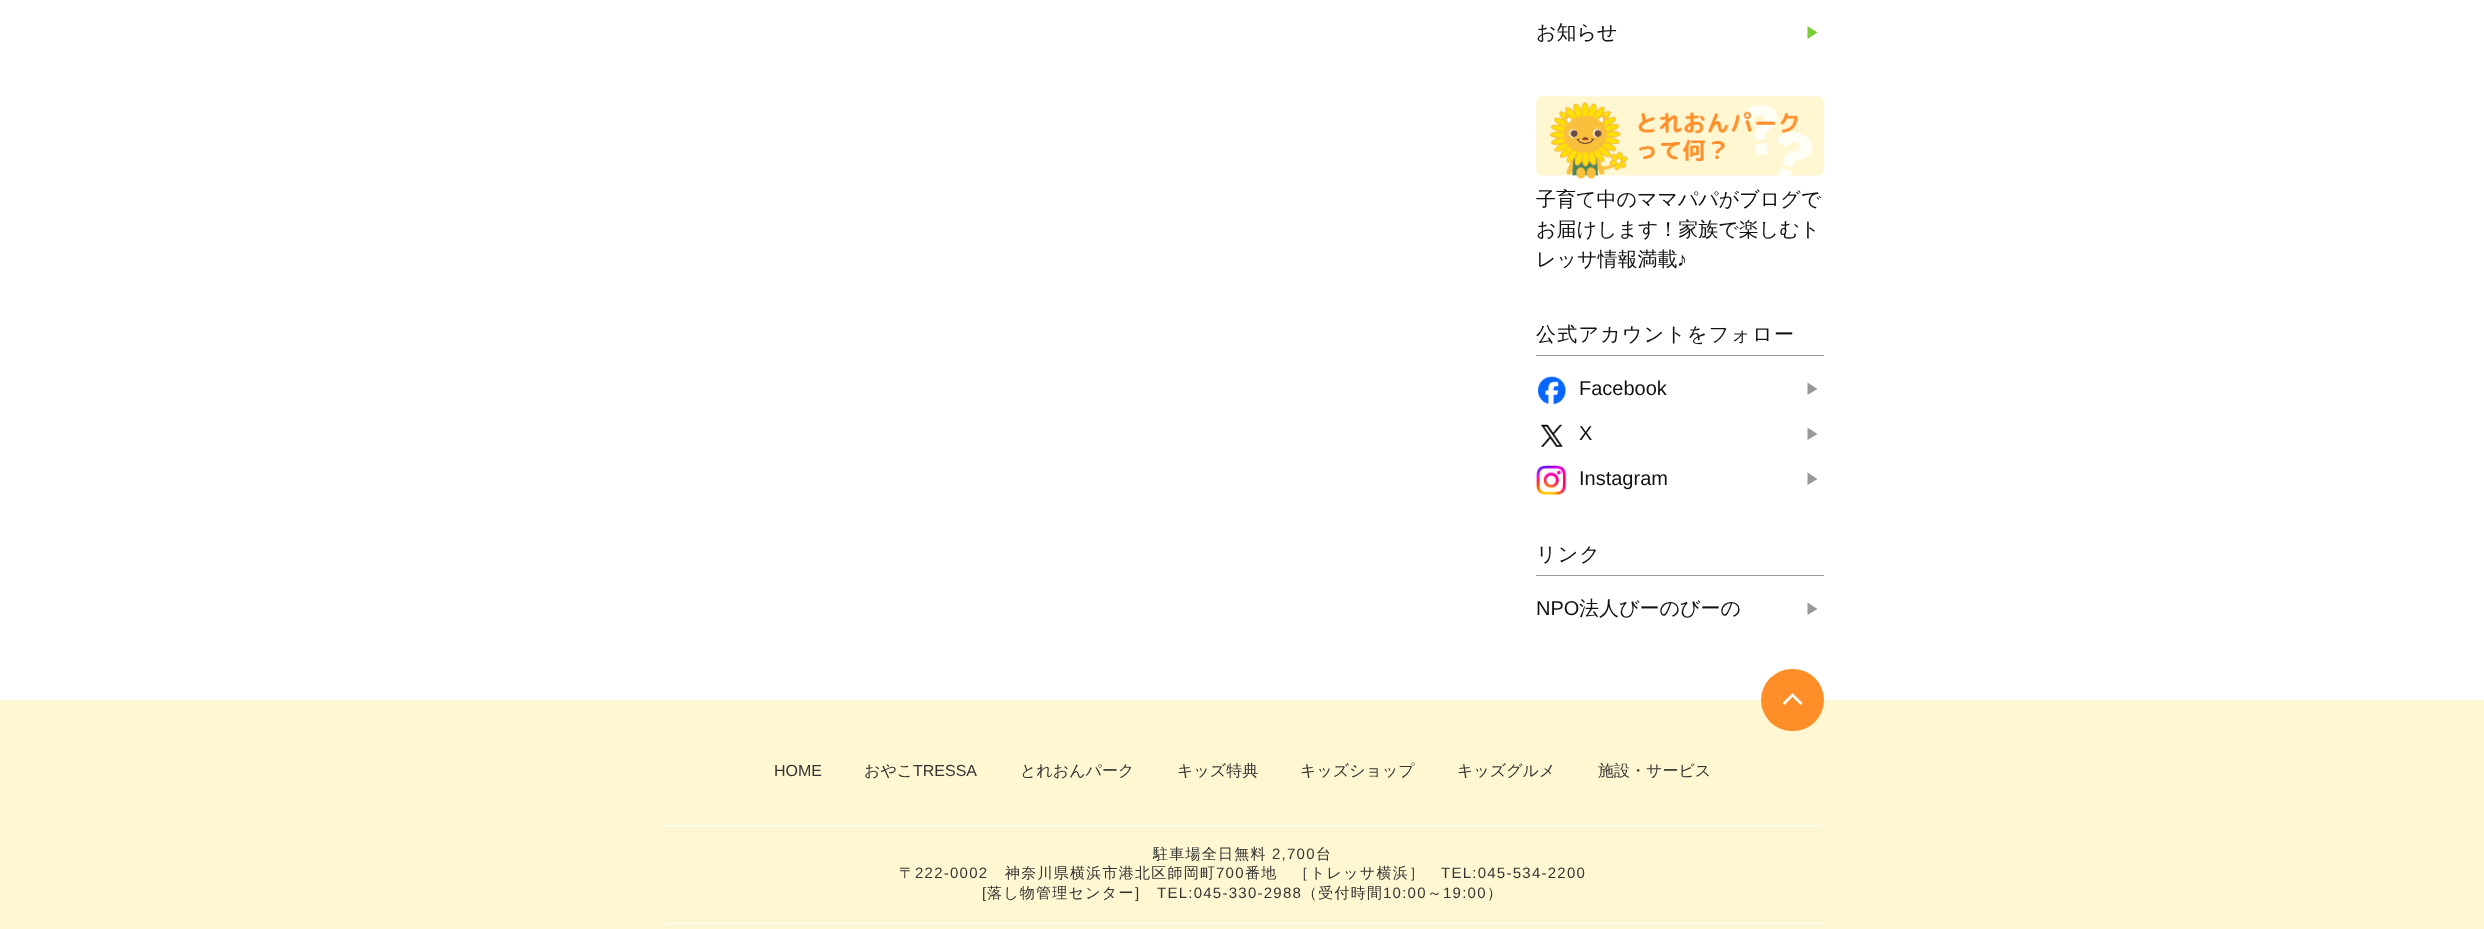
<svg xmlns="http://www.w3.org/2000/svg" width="2484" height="929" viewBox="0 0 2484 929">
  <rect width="100%" height="100%" fill="#ffffff"/>
  <text x="1536" y="39" font-family="WenQuanYi Zen Hei" font-size="20" font-weight="500" fill="#111111">お知らせ</text>
  <path d="M1807.5 39V26L1817.5 32.5Z" fill="#7bcb34"/>
  <image x="1536" y="96" width="288" height="84" href="img1.png"/>
  <text x="1536" y="206" font-family="WenQuanYi Zen Hei" font-size="20" font-weight="500" fill="#111111">子育て中のママパパがブログで</text>
  <text x="1536" y="236" font-family="WenQuanYi Zen Hei" font-size="20" font-weight="500" fill="#111111">お届けします！家族で楽しむト</text>
  <text x="1536" y="266" font-family="WenQuanYi Zen Hei" font-size="20" font-weight="500" fill="#111111">レッサ情報満載</text>
  <text x="1677" y="266" font-family="Liberation Sans" font-size="20" fill="#111111">♪</text>
  <rect x="1536" y="355" width="288" height="1" fill="#999999"/>
  <text x="1536" y="341" font-family="WenQuanYi Zen Hei" font-size="20" font-weight="500" letter-spacing="1.25" fill="#111111">公式アカウントをフォロー</text>
  <image x="1538" y="376" width="28" height="29" href="img2.png"/>
  <text x="1579" y="395" font-family="Liberation Sans" font-size="20" fill="#111111">Facebook</text>
  <path d="M1807.5 395V382.5L1817.5 389Z" fill="#999999"/>
  <image x="1540" y="424" width="23" height="23" href="img3.png"/>
  <text x="1579" y="440" font-family="Liberation Sans" font-size="20" fill="#111111">X</text>
  <path d="M1807.5 440V427.5L1817.5 434Z" fill="#999999"/>
  <image x="1536" y="465" width="31" height="30" href="img4.png"/>
  <text x="1579" y="485" font-family="Liberation Sans" font-size="20" fill="#111111">Instagram</text>
  <path d="M1807.5 485V472.5L1817.5 479Z" fill="#999999"/>
  <rect x="1536" y="575" width="288" height="1" fill="#999999"/>
  <text x="1536" y="561" font-family="WenQuanYi Zen Hei" font-size="20" font-weight="500" letter-spacing="1.25" fill="#111111">リンク</text>
  <text x="1536" y="615" font-family="Liberation Sans" font-size="20" fill="#111111">NPO</text>
  <text x="1579" y="615" font-family="WenQuanYi Zen Hei" font-size="20" font-weight="500" fill="#111111">法人びーのびーの</text>
  <path d="M1807.5 615V602.5L1817.5 609Z" fill="#999999"/>
  <rect x="0" y="700" width="2484" height="229" fill="#fff7d2"/>
  <rect x="1761" y="669" width="63" height="62" rx="31" fill="#ff8e29"/>
  <image x="1782" y="693" width="21" height="12" href="img5.png"/>
  <text x="774" y="776" font-family="Liberation Sans" font-size="16" fill="#333333">HOME</text>
  <text x="864" y="776" font-family="WenQuanYi Zen Hei" font-size="16" font-weight="500" fill="#333333">おやこ</text>
  <text x="913" y="776" font-family="Liberation Sans" font-size="16" fill="#333333">TRESSA</text>
  <text x="1020" y="776" font-family="WenQuanYi Zen Hei" font-size="16" font-weight="500" fill="#333333">とれおんパーク</text>
  <text x="1177" y="776" font-family="WenQuanYi Zen Hei" font-size="16" font-weight="500" fill="#333333">キッズ特典</text>
  <text x="1300" y="776" font-family="WenQuanYi Zen Hei" font-size="16" font-weight="500" fill="#333333">キッズショップ</text>
  <text x="1457" y="776" font-family="WenQuanYi Zen Hei" font-size="16" font-weight="500" fill="#333333">キッズグルメ</text>
  <text x="1598" y="776" font-family="WenQuanYi Zen Hei" font-size="16" font-weight="500" fill="#333333">施設・サービス</text>
  <rect x="661" y="825" width="1163" height="1" fill="#ffffff"/>
  <rect x="661" y="923" width="1163" height="1" fill="#ffffff"/>
  <text x="1153" y="859" font-family="WenQuanYi Zen Hei" font-size="15" font-weight="500" letter-spacing="1.25" fill="#333333">駐車場全日無料</text>
  <text x="1272" y="859" font-family="Liberation Sans" font-size="15" letter-spacing="1.25" fill="#333333">2,700</text>
  <text x="1316" y="859" font-family="WenQuanYi Zen Hei" font-size="15" font-weight="500" letter-spacing="1.25" fill="#333333">台</text>
  <text x="899" y="878" font-family="WenQuanYi Zen Hei" font-size="15" font-weight="500" letter-spacing="1.25" fill="#333333">〒</text>
  <text x="915" y="878" font-family="Liberation Sans" font-size="15" letter-spacing="1.25" fill="#333333">222-0002</text>
  <text x="1005" y="878" font-family="WenQuanYi Zen Hei" font-size="15" font-weight="500" letter-spacing="1.25" fill="#333333">神奈川県横浜市港北区師岡町</text>
  <text x="1216" y="878" font-family="Liberation Sans" font-size="15" letter-spacing="1.25" fill="#333333">700</text>
  <text x="1245" y="878" font-family="WenQuanYi Zen Hei" font-size="15" font-weight="500" letter-spacing="1.25" fill="#333333">番地　［トレッサ横浜］</text>
  <text x="1441" y="878" font-family="Liberation Sans" font-size="15" letter-spacing="1.25" fill="#333333">TEL:045-534-2200</text>
  <text x="982" y="898" font-family="Liberation Sans" font-size="15" letter-spacing="1.25" fill="#333333">[</text>
  <text x="987" y="898" font-family="WenQuanYi Zen Hei" font-size="15" font-weight="500" letter-spacing="1.25" fill="#333333">落し物管理センター</text>
  <text x="1135" y="898" font-family="Liberation Sans" font-size="15" letter-spacing="1.25" fill="#333333">]</text>
  <text x="1157" y="898" font-family="Liberation Sans" font-size="15" letter-spacing="1.25" fill="#333333">TEL:045-330-2988</text>
  <text x="1302" y="898" font-family="WenQuanYi Zen Hei" font-size="15" font-weight="500" letter-spacing="1.25" fill="#333333">（受付時間</text>
  <text x="1383" y="898" font-family="Liberation Sans" font-size="15" letter-spacing="1.25" fill="#333333">10:00</text>
  <text x="1427" y="898" font-family="WenQuanYi Zen Hei" font-size="15" font-weight="500" letter-spacing="1.25" fill="#333333">～</text>
  <text x="1443" y="898" font-family="Liberation Sans" font-size="15" letter-spacing="1.25" fill="#333333">19:00</text>
  <text x="1487" y="898" font-family="WenQuanYi Zen Hei" font-size="15" font-weight="500" letter-spacing="1.25" fill="#333333">）</text>
</svg>
